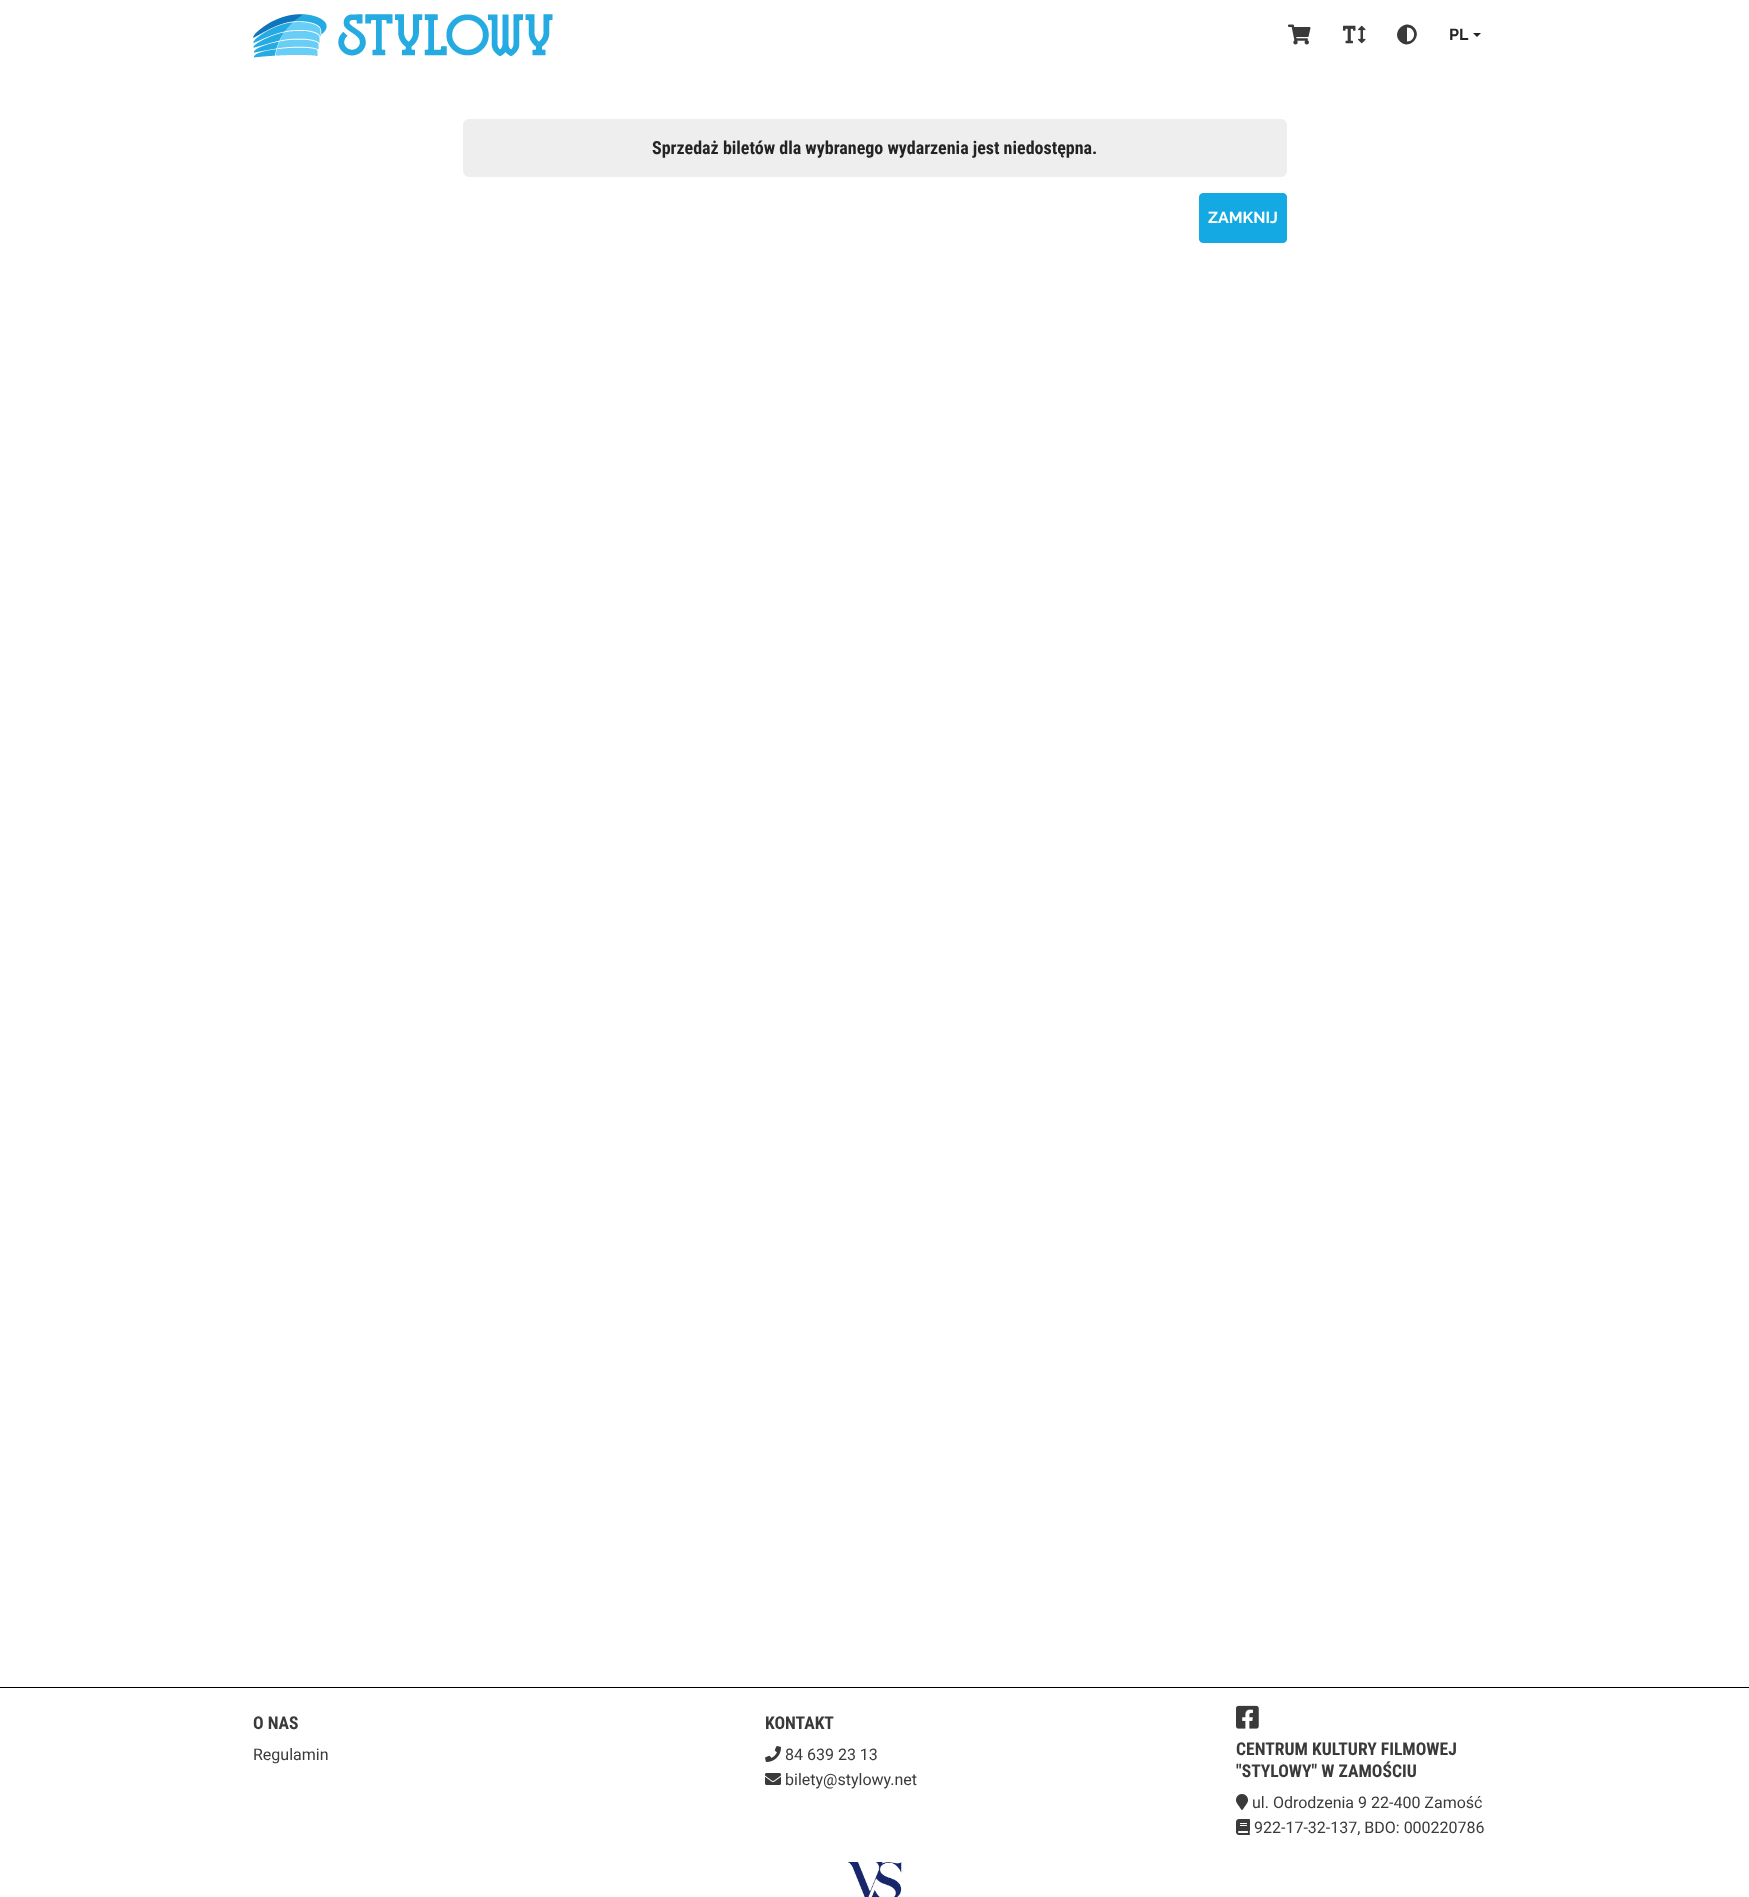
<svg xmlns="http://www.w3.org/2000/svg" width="1749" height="1897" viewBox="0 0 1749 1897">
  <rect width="100%" height="100%" fill="#ffffff"/>
  <image x="253" y="14" width="300" height="44" href="img1.png"/>
  <image x="1288" y="24" width="23" height="21" href="img2.png"/>
  <image x="1343" y="25" width="23" height="19" href="img3.png"/>
  <path d="M1400 41.5C1391 32.5 1405 18.5 1414 27.5C1423 36.5 1409 50.5 1400 41.5ZM1407 41.5C1416.5 41.5 1416.5 27.5 1407 27.5Z" fill="#3a3a3a"/>
  <text x="1449" y="40" font-family="Raleway" font-size="16" font-weight="bold" fill="#232323">PL</text>
  <path d="M1473 33H1481L1477 37Z" fill="#232323"/>
  <rect x="464" y="120" width="822" height="56" rx="5" fill="#eeeeee" stroke="#eeeeee" stroke-width="2"/>
  <text x="652" y="154" font-family="Roboto Condensed" font-size="18" font-weight="bold" fill="#232323">Sprzedaż biletów dla wybranego wydarzenia jest niedostępna.</text>
  <rect x="1199.5" y="193.5" width="87" height="49" rx="3.5" fill="#14a9e3" stroke="#14a9e3"/>
  <text x="1208" y="223" font-family="Raleway" font-size="16" font-weight="bold" fill="#ffffff">ZAMKNIJ</text>
  <rect x="0" y="1687" width="1749" height="1" fill="#000000"/>
  <text x="253" y="1729" font-family="Roboto Condensed" font-size="17.6" font-weight="bold" fill="#3a3a3a">O NAS</text>
  <text x="253" y="1760" font-family="Roboto" font-size="16" fill="#3a3a3a">Regulamin</text>
  <text x="765" y="1729" font-family="Roboto Condensed" font-size="17.6" font-weight="bold" fill="#3a3a3a">KONTAKT</text>
  <image x="765" y="1746" width="16" height="16" href="img4.png"/>
  <text x="785" y="1760" font-family="Roboto" font-size="16" fill="#3a3a3a">84 639 23 13</text>
  <image x="765" y="1773" width="16" height="12" href="img5.png"/>
  <text x="785" y="1785" font-family="Roboto" font-size="16" fill="#3a3a3a">bilety@stylowy.net</text>
  <image x="1236" y="1705" width="23" height="24" href="img6.png"/>
  <text x="1236" y="1755" font-family="Roboto Condensed" font-size="17.6" font-weight="bold" fill="#3a3a3a">CENTRUM KULTURY FILMOWEJ</text>
  <text x="1236" y="1777" font-family="Roboto Condensed" font-size="17.6" font-weight="bold" fill="#3a3a3a">"STYLOWY" W ZAMOŚCIU</text>
  <image x="1236" y="1794" width="12" height="16" href="img7.png"/>
  <text x="1252" y="1808" font-family="Roboto" font-size="16" fill="#3a3a3a">ul. Odrodzenia 9 22-400 Zamość</text>
  <image x="1236" y="1819" width="14" height="16" href="img8.png"/>
  <text x="1254" y="1833" font-family="Roboto" font-size="16" fill="#3a3a3a">922-17-32-137, BDO: 000220786</text>
  <image x="848" y="1862" width="54" height="35" href="img9.png"/>
</svg>
